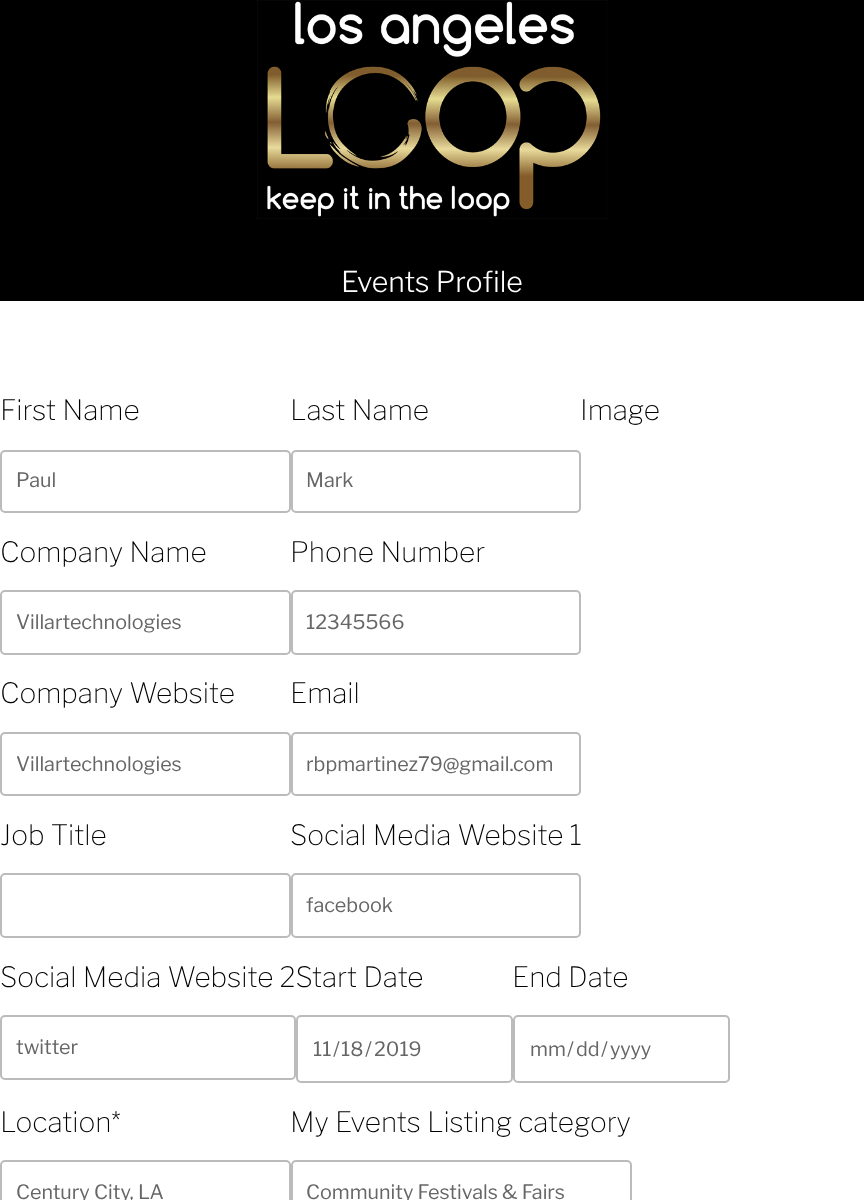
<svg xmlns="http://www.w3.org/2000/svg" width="864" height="1200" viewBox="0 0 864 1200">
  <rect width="100%" height="100%" fill="#ffffff"/>
  <rect x="0" y="0" width="864" height="301" fill="#000000"/>
  <image x="257" y="0" width="351" height="219" href="img1.png"/>
  <text x="341" y="292" font-family="Libre Franklin" font-size="28.5" font-weight="300" fill="#ffffff">Events Profile</text>
  <text x="0" y="420" font-family="Libre Franklin" font-size="28" font-weight="100" fill="#000000">First Name</text>
  <rect x="1" y="451" width="289" height="61" rx="4" fill="none" stroke="#bbbbbb" stroke-width="2"/>
  <text x="16" y="487" font-family="Libre Franklin" font-size="19.75" fill="#666666">Paul</text>
  <text x="290" y="420" font-family="Libre Franklin" font-size="28" font-weight="100" fill="#000000">Last Name</text>
  <rect x="292" y="451" width="288" height="61" rx="4" fill="none" stroke="#bbbbbb" stroke-width="2"/>
  <text x="306" y="487" font-family="Libre Franklin" font-size="19.75" fill="#666666">Mark</text>
  <text x="580" y="420" font-family="Libre Franklin" font-size="28" font-weight="100" fill="#000000">Image</text>
  <text x="0" y="562" font-family="Libre Franklin" font-size="28" font-weight="100" fill="#000000">Company Name</text>
  <rect x="1" y="591" width="289" height="63" rx="4" fill="none" stroke="#bbbbbb" stroke-width="2"/>
  <text x="16" y="629" font-family="Libre Franklin" font-size="19.75" fill="#666666">Villartechnologies</text>
  <text x="290" y="562" font-family="Libre Franklin" font-size="28" font-weight="100" fill="#000000">Phone Number</text>
  <rect x="292" y="591" width="288" height="63" rx="4" fill="none" stroke="#bbbbbb" stroke-width="2"/>
  <text x="306" y="629" font-family="Libre Franklin" font-size="19.75" fill="#666666">12345566</text>
  <text x="0" y="703" font-family="Libre Franklin" font-size="28" font-weight="100" fill="#000000">Company Website</text>
  <rect x="1" y="733" width="289" height="62" rx="4" fill="none" stroke="#bbbbbb" stroke-width="2"/>
  <text x="16" y="771" font-family="Libre Franklin" font-size="19.75" fill="#666666">Villartechnologies</text>
  <text x="290" y="703" font-family="Libre Franklin" font-size="28" font-weight="100" fill="#000000">Email</text>
  <rect x="292" y="733" width="288" height="62" rx="4" fill="none" stroke="#bbbbbb" stroke-width="2"/>
  <text x="306" y="771" font-family="Libre Franklin" font-size="19.75" fill="#666666">rbpmartinez79@gmail.com</text>
  <text x="0" y="845" font-family="Libre Franklin" font-size="28" font-weight="100" fill="#000000">Job Title</text>
  <rect x="1" y="874" width="289" height="63" rx="4" fill="none" stroke="#bbbbbb" stroke-width="2"/>
  <text x="290" y="845" font-family="Libre Franklin" font-size="28" font-weight="100" fill="#000000">Social Media Website 1</text>
  <rect x="292" y="874" width="288" height="63" rx="4" fill="none" stroke="#bbbbbb" stroke-width="2"/>
  <text x="306" y="912" font-family="Libre Franklin" font-size="19.75" fill="#666666">facebook</text>
  <text x="0" y="987" font-family="Libre Franklin" font-size="28" font-weight="100" fill="#000000">Social Media Website 2Start Date</text>
  <rect x="1" y="1016" width="294" height="63" rx="4" fill="none" stroke="#bbbbbb" stroke-width="2"/>
  <text x="16" y="1054" font-family="Libre Franklin" font-size="19.75" fill="#666666">twitter</text>
  <text x="512" y="987" font-family="Libre Franklin" font-size="28" font-weight="100" fill="#000000">End Date</text>
  <rect x="514" y="1016" width="215" height="66" rx="4" fill="none" stroke="#bbbbbb" stroke-width="2"/>
  <text x="530" y="1056" font-family="Libre Franklin" font-size="19.75" fill="#666666">mm</text>
  <text x="567" y="1056" font-family="Libre Franklin" font-size="19.75" fill="#666666">/</text>
  <text x="576" y="1056" font-family="Libre Franklin" font-size="19.75" fill="#666666">dd</text>
  <text x="601" y="1056" font-family="Libre Franklin" font-size="19.75" fill="#666666">/</text>
  <text x="610" y="1056" font-family="Libre Franklin" font-size="19.75" fill="#666666">yyyy</text>
  <rect x="297" y="1016" width="215" height="66" rx="4" fill="none" stroke="#bbbbbb" stroke-width="2"/>
  <text x="313" y="1056" font-family="Libre Franklin" font-size="19.75" fill="#666666">11</text>
  <text x="333" y="1056" font-family="Libre Franklin" font-size="19.75" fill="#666666">/</text>
  <text x="341" y="1056" font-family="Libre Franklin" font-size="19.75" fill="#666666">18</text>
  <text x="365" y="1056" font-family="Libre Franklin" font-size="19.75" fill="#666666">/</text>
  <text x="374" y="1056" font-family="Libre Franklin" font-size="19.75" fill="#666666">2019</text>
  <text x="0" y="1132" font-family="Libre Franklin" font-size="28" font-weight="100" fill="#000000">Location*</text>
  <rect x="1" y="1161" width="289" height="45" rx="4" fill="none" stroke="#bbbbbb" stroke-width="2"/>
  <text x="16" y="1199" font-family="Libre Franklin" font-size="19.75" fill="#666666">Century City, LA</text>
  <text x="290" y="1132" font-family="Libre Franklin" font-size="28" font-weight="100" fill="#000000">My Events Listing category</text>
  <rect x="292" y="1161" width="339" height="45" rx="4" fill="none" stroke="#bbbbbb" stroke-width="2"/>
  <text x="306" y="1199" font-family="Libre Franklin" font-size="19.75" fill="#666666">Community Festivals &amp; Fairs</text>
</svg>
